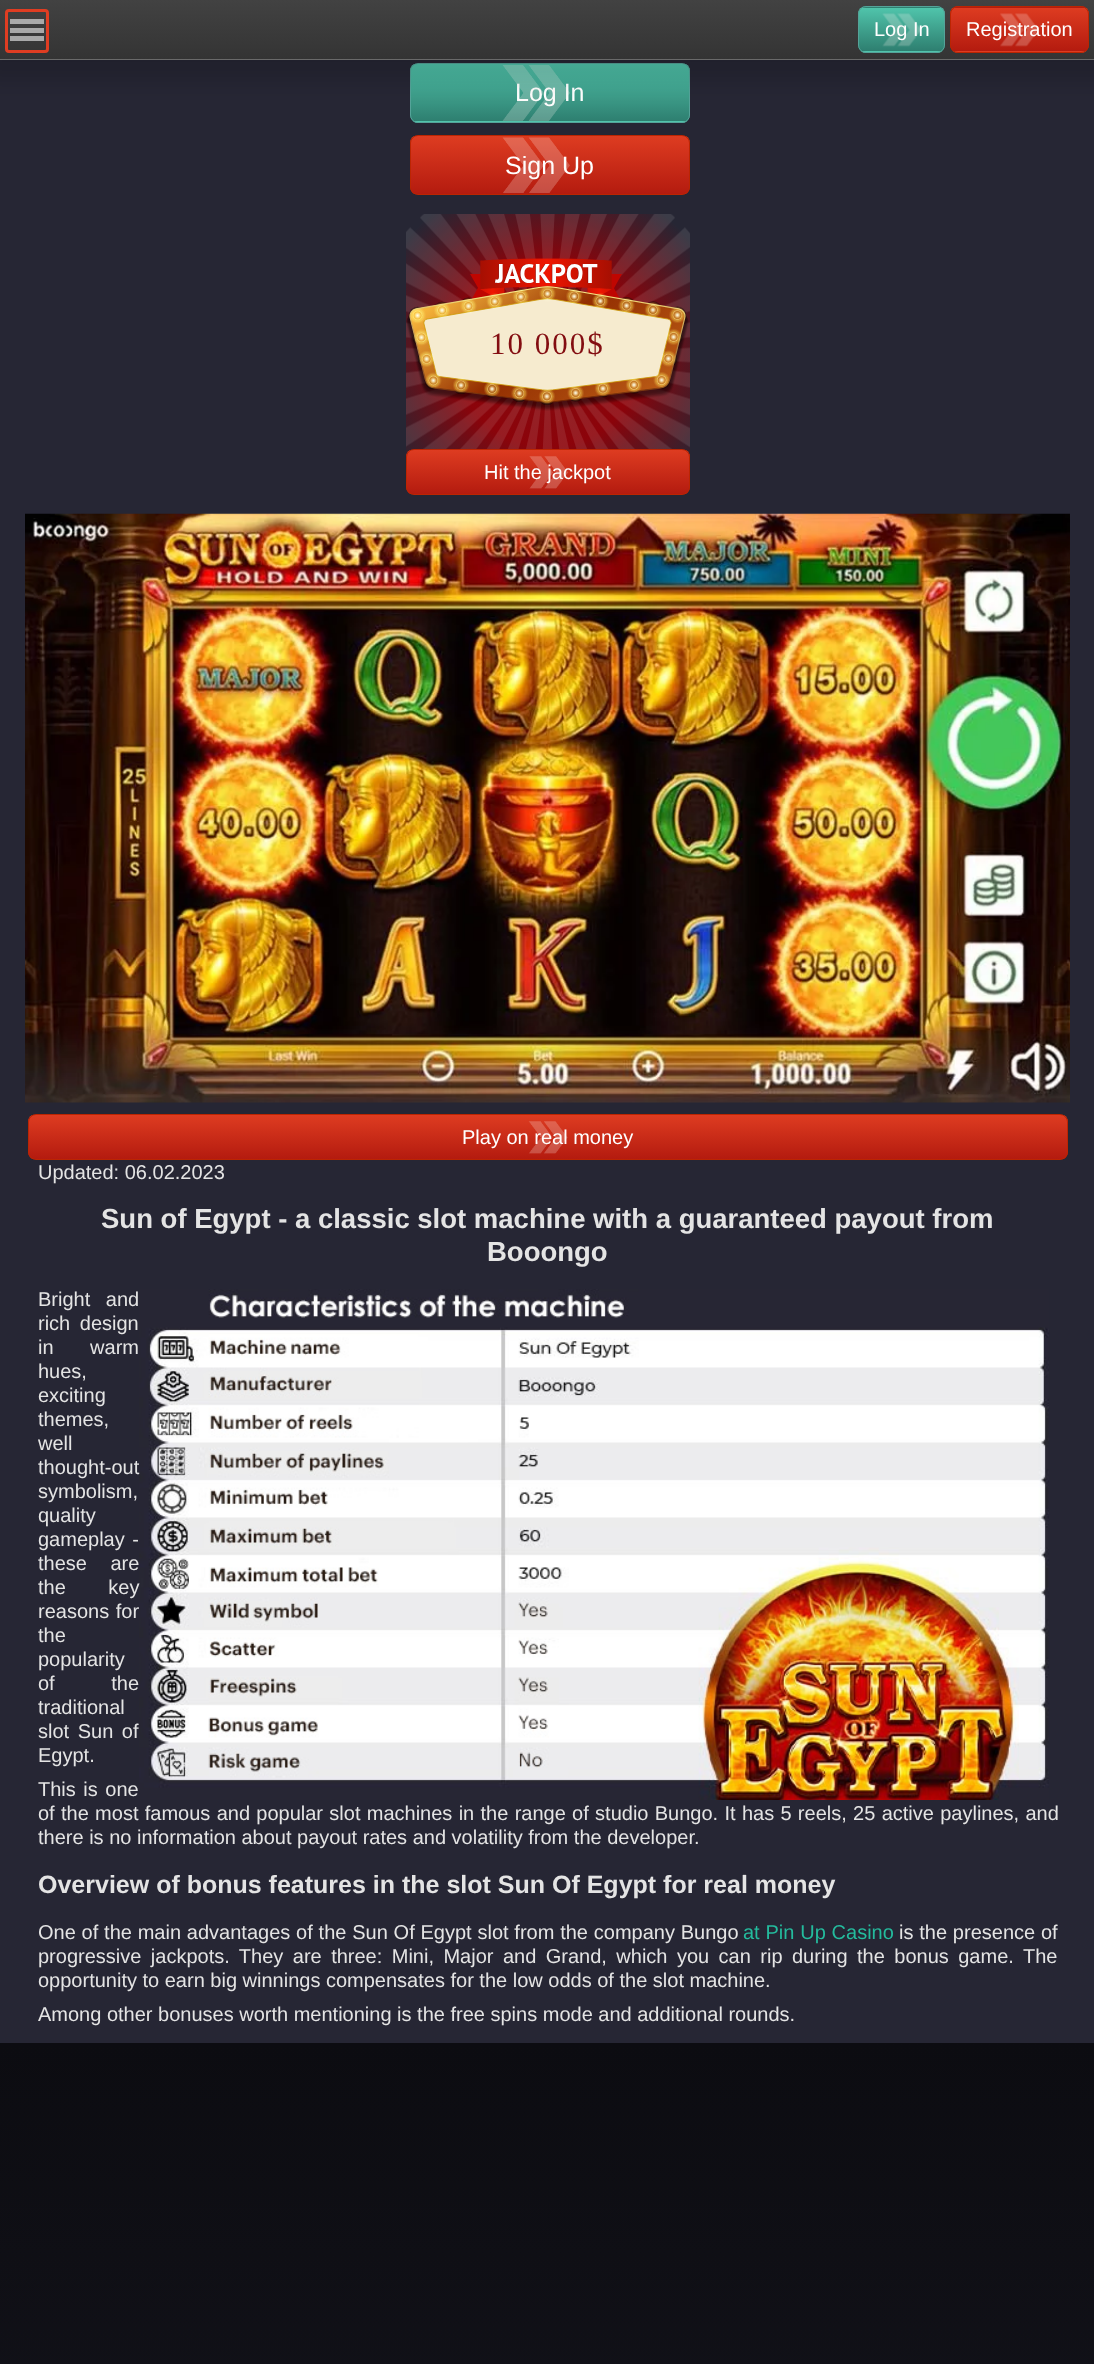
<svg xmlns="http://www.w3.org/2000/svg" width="1094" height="2364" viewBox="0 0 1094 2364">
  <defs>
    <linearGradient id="g1" gradientUnits="userSpaceOnUse" x1="547" y1="2043" x2="548" y2="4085"><stop offset="0" stop-color="#0c0c11"/><stop offset="0.9" stop-color="#262634"/><stop offset="1" stop-color="#2e2e3e"/></linearGradient>
    <clipPath id="clip1"><rect x="410" y="63" width="280" height="60" rx="8"/></clipPath>
    <linearGradient id="g2" gradientUnits="userSpaceOnUse" x1="550" y1="64" x2="550" y2="121"><stop offset="0" stop-color="#50c5ac"/><stop offset="0.5" stop-color="#3fa18d"/><stop offset="1" stop-color="#2e7f70"/></linearGradient>
    <linearGradient id="g3" gradientUnits="userSpaceOnUse" x1="550" y1="121" x2="550" y2="179"><stop offset="0" stop-color="#50c5ac"/><stop offset="0.5" stop-color="#3fa18d"/><stop offset="1" stop-color="#2e7f70"/></linearGradient>
    <filter id="blur1" x="-50%" y="-200%" width="200%" height="500%"><feGaussianBlur stdDeviation="11"/></filter>
    <linearGradient id="g4" gradientUnits="userSpaceOnUse" x1="548" y1="0" x2="548" y2="59"><stop offset="0" stop-color="#424242"/><stop offset="1" stop-color="#343434"/></linearGradient>
    <clipPath id="clip2"><rect x="858" y="6" width="87" height="47" rx="8"/></clipPath>
    <linearGradient id="g5" gradientUnits="userSpaceOnUse" x1="901" y1="-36" x2="901" y2="7.5"><stop offset="0" stop-color="#50c5ac"/><stop offset="0.5" stop-color="#3fa18d"/><stop offset="1" stop-color="#2e7f70"/></linearGradient>
    <linearGradient id="g6" gradientUnits="userSpaceOnUse" x1="901" y1="7.5" x2="901" y2="51"><stop offset="0" stop-color="#50c5ac"/><stop offset="0.5" stop-color="#3fa18d"/><stop offset="1" stop-color="#2e7f70"/></linearGradient>
    <linearGradient id="g7" gradientUnits="userSpaceOnUse" x1="901" y1="51" x2="901" y2="95"><stop offset="0" stop-color="#50c5ac"/><stop offset="0.5" stop-color="#3fa18d"/><stop offset="1" stop-color="#2e7f70"/></linearGradient>
    <clipPath id="clip3"><rect x="950" y="6" width="139" height="47" rx="8"/></clipPath>
    <linearGradient id="g8" gradientUnits="userSpaceOnUse" x1="1019" y1="-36" x2="1019" y2="7.5"><stop offset="0" stop-color="#de3c21"/><stop offset="1" stop-color="#b41b0f"/></linearGradient>
    <linearGradient id="g9" gradientUnits="userSpaceOnUse" x1="1019" y1="7.5" x2="1019" y2="51"><stop offset="0" stop-color="#de3c21"/><stop offset="1" stop-color="#b41b0f"/></linearGradient>
    <linearGradient id="g10" gradientUnits="userSpaceOnUse" x1="1019" y1="51" x2="1019" y2="95"><stop offset="0" stop-color="#de3c21"/><stop offset="1" stop-color="#b41b0f"/></linearGradient>
    <clipPath id="clip4"><rect x="410" y="135" width="280" height="60" rx="8"/></clipPath>
    <linearGradient id="g11" gradientUnits="userSpaceOnUse" x1="550" y1="136" x2="550" y2="194"><stop offset="0" stop-color="#de3c21"/><stop offset="1" stop-color="#b41b0f"/></linearGradient>
    <clipPath id="clip5"><rect x="406" y="214" width="284" height="281"/></clipPath>
    <radialGradient id="g12" gradientUnits="userSpaceOnUse" cx="548" cy="355" r="183"><stop offset="0" stop-color="#830e12"/><stop offset="0.5" stop-color="#8c030a"/><stop offset="1" stop-color="#262634"/></radialGradient>
    <clipPath id="clip6"><rect x="406" y="449" width="284" height="46" rx="8"/></clipPath>
    <linearGradient id="g13" gradientUnits="userSpaceOnUse" x1="548" y1="450" x2="548" y2="494"><stop offset="0" stop-color="#de3c21"/><stop offset="1" stop-color="#b41b0f"/></linearGradient>
    <clipPath id="clip7"><rect x="28" y="1114" width="1040" height="46" rx="8"/></clipPath>
    <linearGradient id="g14" gradientUnits="userSpaceOnUse" x1="548" y1="1115" x2="548" y2="1159"><stop offset="0" stop-color="#de3c21"/><stop offset="1" stop-color="#b41b0f"/></linearGradient>
  </defs>
  <rect width="100%" height="100%" fill="#ffffff"/>
  <rect x="0" y="2043" width="1094" height="321" fill="url(#g1)"/>
  <rect x="0" y="60" width="1094" height="1983" fill="#262634"/>
  <g clip-path="url(#clip1)">
    <rect x="410" y="64" width="280" height="57" fill="url(#g2)"/>
    <rect x="410" y="121" width="280" height="2" fill="url(#g3)"/>
  </g>
  <rect x="410.5" y="63.5" width="279" height="59" rx="7.5" fill="none" stroke="#55a399"/>
  <text x="515" y="101" font-family="Liberation Sans" font-size="25" fill="#ffffff">Log In</text>
  <image x="502" y="65" width="68" height="56" href="img3.png"/>
  <rect x="-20" y="-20" width="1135" height="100" fill="#000000" fill-opacity="0.15" filter="url(#blur1)"/>
  <rect x="0" y="0" width="1094" height="59" fill="url(#g4)"/>
  <rect x="0" y="59" width="1094" height="1" fill="#6a6a6a"/>
  <rect x="6.5" y="10.5" width="41" height="41" rx="2.5" fill="none" stroke="#e03d22" stroke-width="3"/>
  <rect x="10" y="19" width="34" height="5" fill="#a9a9a9"/>
  <rect x="10" y="28" width="34" height="5" fill="#a9a9a9"/>
  <rect x="10" y="36" width="34" height="5" fill="#a9a9a9"/>
  <g clip-path="url(#clip2)">
    <rect x="858" y="6" width="87" height="2" fill="url(#g5)"/>
    <rect x="858" y="8" width="87" height="43" fill="url(#g6)"/>
    <rect x="858" y="51" width="87" height="2" fill="url(#g7)"/>
  </g>
  <rect x="858.5" y="6.5" width="86" height="46" rx="7.5" fill="none" stroke="#55a399"/>
  <text x="874" y="36" font-family="Liberation Sans" font-size="20" fill="#ffffff">Log In</text>
  <image x="882" y="13" width="38" height="34" href="img1.png"/>
  <g clip-path="url(#clip3)">
    <rect x="950" y="6" width="139" height="2" fill="url(#g8)"/>
    <rect x="950" y="8" width="139" height="43" fill="url(#g9)"/>
    <rect x="950" y="51" width="139" height="2" fill="url(#g10)"/>
  </g>
  <rect x="950.5" y="6.5" width="138" height="46" rx="7.5" fill="none" stroke="#bc2502"/>
  <text x="966" y="36" font-family="Liberation Sans" font-size="20" fill="#ffffff">Registration</text>
  <image x="1000" y="13" width="39" height="34" href="img2.png"/>
  <g clip-path="url(#clip4)">
    <rect x="410" y="136" width="280" height="58" fill="url(#g11)"/>
  </g>
  <rect x="410.5" y="135.5" width="279" height="59" rx="7.5" fill="none" stroke="#bc2502"/>
  <text x="505" y="174" font-family="Liberation Sans" font-size="25" fill="#ffffff">Sign Up</text>
  <image x="502" y="137" width="68" height="56" href="img4.png"/>
  <image x="25" y="513" width="1045" height="590" href="img8.png"/>
  <g clip-path="url(#clip5)">
    <circle cx="547.5" cy="355.5" r="182.5" fill="url(#g12)"/>
  </g>
  <image x="406" y="214" width="284" height="235" href="img5.png"/>
  <image x="406" y="258" width="283" height="153" href="img6.png"/>
  <text x="490" y="354" font-family="Liberation Serif" font-size="31" letter-spacing="2" fill="#830d11">10 000$</text>
  <g clip-path="url(#clip6)">
    <rect x="406" y="450" width="284" height="44" fill="url(#g13)"/>
  </g>
  <rect x="406.5" y="449.5" width="283" height="45" rx="7.5" fill="none" stroke="#bc2502"/>
  <text x="484" y="479" font-family="Liberation Sans" font-size="20" fill="#ffffff">Hit the jackpot</text>
  <image x="529" y="456" width="40" height="33" href="img7.png"/>
  <g clip-path="url(#clip7)">
    <rect x="28" y="1115" width="1040" height="44" fill="url(#g14)"/>
  </g>
  <rect x="28.5" y="1114.5" width="1039" height="45" rx="7.5" fill="none" stroke="#bc2502"/>
  <text x="462" y="1144" font-family="Liberation Sans" font-size="20" fill="#ffffff">Play on real money</text>
  <image x="528" y="1121" width="40" height="33" href="img9.png"/>
  <text x="38" y="1179" font-family="Liberation Sans" font-size="20" fill="#e4e4e4">Updated: 06.02.2023</text>
  <text x="101" y="1228" font-family="Liberation Sans" font-size="27.5" font-weight="bold" fill="#e4e4e4">Sun of Egypt - a classic slot machine with a guaranteed payout from</text>
  <text x="487" y="1261" font-family="Liberation Sans" font-size="27.5" font-weight="bold" fill="#e4e4e4">Booongo</text>
  <text x="38" y="1306" word-spacing="10" font-family="Liberation Sans" font-size="20" fill="#e4e4e4">Bright and</text>
  <image x="139" y="1289" width="910" height="511" href="img10.png"/>
  <text x="38" y="1330" word-spacing="4" font-family="Liberation Sans" font-size="20" fill="#e4e4e4">rich design</text>
  <text x="38" y="1354" word-spacing="31" font-family="Liberation Sans" font-size="20" fill="#e4e4e4">in warm</text>
  <text x="38" y="1378" font-family="Liberation Sans" font-size="20" fill="#e4e4e4">hues,</text>
  <text x="38" y="1402" font-family="Liberation Sans" font-size="20" fill="#e4e4e4">exciting</text>
  <text x="38" y="1426" font-family="Liberation Sans" font-size="20" fill="#e4e4e4">themes,</text>
  <text x="38" y="1450" font-family="Liberation Sans" font-size="20" fill="#e4e4e4">well</text>
  <text x="38" y="1474" font-family="Liberation Sans" font-size="20" fill="#e4e4e4">thought-out</text>
  <text x="38" y="1498" font-family="Liberation Sans" font-size="20" fill="#e4e4e4">symbolism,</text>
  <text x="38" y="1522" font-family="Liberation Sans" font-size="20" fill="#e4e4e4">quality</text>
  <text x="38" y="1546" word-spacing="2" font-family="Liberation Sans" font-size="20" fill="#e4e4e4">gameplay -</text>
  <text x="38" y="1570" word-spacing="18" font-family="Liberation Sans" font-size="20" fill="#e4e4e4">these are</text>
  <text x="38" y="1594" word-spacing="37" font-family="Liberation Sans" font-size="20" fill="#e4e4e4">the key</text>
  <text x="38" y="1618" word-spacing="1" font-family="Liberation Sans" font-size="20" fill="#e4e4e4">reasons for</text>
  <text x="38" y="1642" font-family="Liberation Sans" font-size="20" fill="#e4e4e4">the</text>
  <text x="38" y="1666" font-family="Liberation Sans" font-size="20" fill="#e4e4e4">popularity</text>
  <text x="38" y="1690" word-spacing="51" font-family="Liberation Sans" font-size="20" fill="#e4e4e4">of the</text>
  <text x="38" y="1714" font-family="Liberation Sans" font-size="20" fill="#e4e4e4">traditional</text>
  <text x="38" y="1738" word-spacing="3" font-family="Liberation Sans" font-size="20" fill="#e4e4e4">slot Sun of</text>
  <text x="38" y="1762" font-family="Liberation Sans" font-size="20" fill="#e4e4e4">Egypt.</text>
  <text x="38" y="1796" word-spacing="2" font-family="Liberation Sans" font-size="20" fill="#e4e4e4">This is one</text>
  <text x="38" y="1820" word-spacing="0.75" font-family="Liberation Sans" font-size="20" fill="#e4e4e4">of the most famous and popular slot machines in the range of studio Bungo. It has 5 reels, 25 active paylines, and</text>
  <text x="38" y="1844" font-family="Liberation Sans" font-size="20" fill="#e4e4e4">there is no information about payout rates and volatility from the developer.</text>
  <text x="38" y="1893" font-family="Liberation Sans" font-size="25" font-weight="bold" fill="#e4e4e4">Overview of bonus features in the slot Sun Of Egypt for real money</text>
  <text x="38" y="1939" word-spacing="0.25" font-family="Liberation Sans" font-size="20" fill="#e4e4e4">One of the main advantages of the Sun Of Egypt slot from the company Bungo</text>
  <text x="743" y="1939" word-spacing="0.25" font-family="Liberation Sans" font-size="20" fill="#24bb9d">at Pin Up Casino</text>
  <text x="899" y="1939" word-spacing="0.25" font-family="Liberation Sans" font-size="20" fill="#e4e4e4">is the presence of</text>
  <text x="38" y="1963" word-spacing="3.9" font-family="Liberation Sans" font-size="20" fill="#e4e4e4">progressive jackpots. They are three: Mini, Major and Grand, which you can rip during the bonus game. The</text>
  <text x="38" y="1987" font-family="Liberation Sans" font-size="20" fill="#e4e4e4">opportunity to earn big winnings compensates for the low odds of the slot machine.</text>
  <text x="38" y="2021" font-family="Liberation Sans" font-size="20" fill="#e4e4e4">Among other bonuses worth mentioning is the free spins mode and additional rounds.</text>
</svg>
